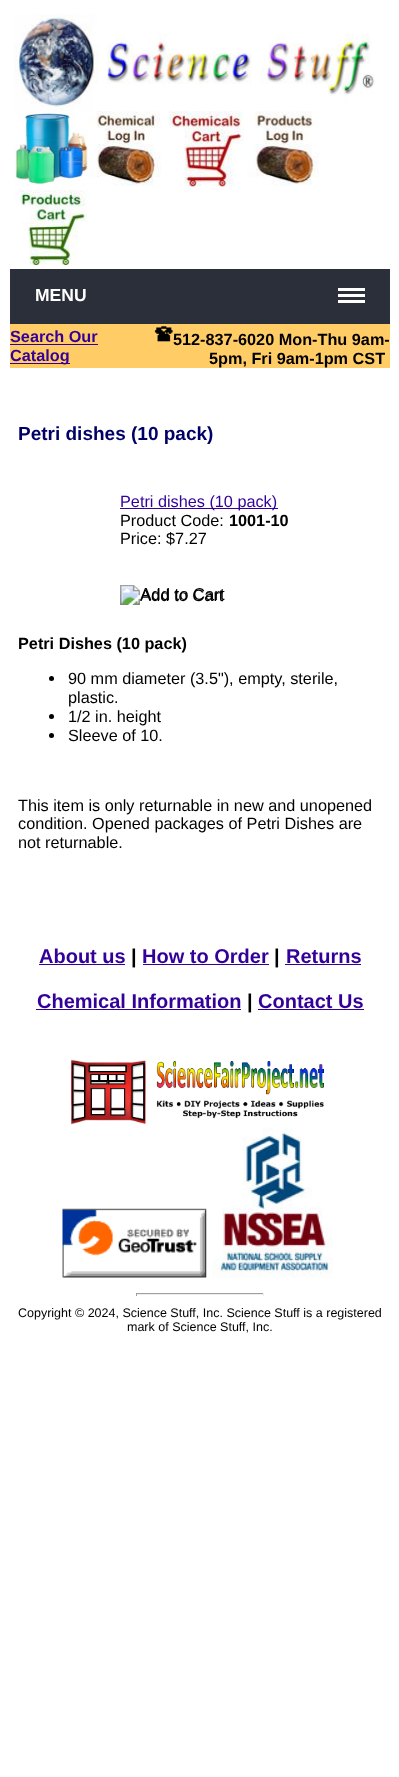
<svg xmlns="http://www.w3.org/2000/svg" width="399" height="1777" viewBox="0 0 399 1777">
  <rect width="100%" height="100%" fill="#ffffff"/>
  <image x="14" y="14" width="361" height="97" href="img1.png"/>
  <image x="14" y="111" width="75" height="75" href="img2.png"/>
  <image x="89" y="111" width="72" height="75" href="img3.png"/>
  <image x="168" y="111" width="76" height="76" href="img4.png"/>
  <image x="247" y="111" width="72" height="75" href="img5.png"/>
  <image x="14" y="190" width="75" height="75" href="img6.png"/>
  <rect x="10" y="269" width="380" height="55" fill="#2b2f3a"/>
  <text x="35" y="301" font-family="Liberation Sans" font-size="17.5" font-weight="bold" fill="#ffffff">MENU</text>
  <rect x="338" y="288" width="27" height="3" fill="#ffffff"/>
  <rect x="338" y="294" width="27" height="3" fill="#ffffff"/>
  <rect x="338" y="300" width="27" height="3" fill="#ffffff"/>
  <rect x="10" y="324" width="380" height="44" fill="#ffcc66"/>
  <text x="10" y="342" font-family="Liberation Sans" font-size="16.25" font-weight="bold" fill="#330099">Search Our</text>
  <rect x="10" y="344" width="88" height="1" fill="#330099"/>
  <rect x="10" y="363" width="60" height="1" fill="#330099"/>
  <text x="10" y="361" font-family="Liberation Sans" font-size="16.25" font-weight="bold" fill="#330099">Catalog</text>
  <image x="154" y="326" width="19" height="16" href="img7.png"/>
  <text x="173" y="345" font-family="Liberation Sans" font-size="16.25" font-weight="bold" fill="#000000">512-837-6020 Mon-Thu 9am-</text>
  <text x="209" y="364" font-family="Liberation Sans" font-size="16.25" font-weight="bold" fill="#000000">5pm, Fri 9am-1pm CST</text>
  <text x="18" y="440" font-family="Liberation Sans" font-size="19" font-weight="bold" fill="#000066">Petri dishes (10 pack)</text>
  <rect x="120" y="508" width="158" height="1" fill="#330099"/>
  <text x="120" y="507" font-family="Liberation Sans" font-size="16.25" fill="#330099">Petri dishes (10 pack)</text>
  <text x="120" y="526" font-family="Liberation Sans" font-size="16.25" fill="#000000">Product Code:</text>
  <text x="229" y="526" font-family="Liberation Sans" font-size="16.25" font-weight="bold" fill="#000000">1001-10</text>
  <text x="120" y="544" font-family="Liberation Sans" font-size="16.25" fill="#000000">Price: $7.27</text>
  <image x="120" y="585" width="105" height="20" href="img8.png"/>
  <text x="140" y="601" font-family="Liberation Sans" font-size="16.5" fill="#000000">Add to Cart</text>
  <text x="18" y="649" font-family="Liberation Sans" font-size="16.25" font-weight="bold" fill="#000000">Petri Dishes (10 pack)</text>
  <circle cx="51.5" cy="678.5" r="2.5" fill="#000000"/>
  <text x="68" y="684" font-family="Liberation Sans" font-size="16.25" fill="#000000">90 mm diameter (3.5"), empty, sterile,</text>
  <text x="68" y="703" font-family="Liberation Sans" font-size="16.25" fill="#000000">plastic.</text>
  <circle cx="51.5" cy="716.5" r="2.5" fill="#000000"/>
  <text x="68" y="722" font-family="Liberation Sans" font-size="16.25" fill="#000000">1/2 in. height</text>
  <circle cx="51.5" cy="735.5" r="2.5" fill="#000000"/>
  <text x="68" y="741" font-family="Liberation Sans" font-size="16.25" fill="#000000">Sleeve of 10.</text>
  <text x="18" y="811" font-family="Liberation Sans" font-size="16.25" fill="#000000">This item is only returnable in new and unopened</text>
  <text x="18" y="829" font-family="Liberation Sans" font-size="16.25" fill="#000000">condition. Opened packages of Petri Dishes are</text>
  <text x="18" y="848" font-family="Liberation Sans" font-size="16.25" fill="#000000">not returnable.</text>
  <text x="39" y="963" font-family="Liberation Sans" font-size="20" font-weight="bold" fill="#330099">About us</text>
  <rect x="39" y="964" width="86" height="1" fill="#330099"/>
  <text x="131" y="963" font-family="Liberation Sans" font-size="20" font-weight="bold" fill="#000000">|</text>
  <text x="142" y="963" font-family="Liberation Sans" font-size="20" font-weight="bold" fill="#330099">How to Order</text>
  <rect x="143" y="964" width="126" height="1" fill="#330099"/>
  <text x="274" y="963" font-family="Liberation Sans" font-size="20" font-weight="bold" fill="#000000">|</text>
  <text x="286" y="963" font-family="Liberation Sans" font-size="20" font-weight="bold" fill="#330099">Returns</text>
  <rect x="285" y="964" width="76" height="1" fill="#330099"/>
  <text x="37" y="1008" font-family="Liberation Sans" font-size="20" font-weight="bold" fill="#330099">Chemical Information</text>
  <rect x="36" y="1009" width="205" height="1" fill="#330099"/>
  <text x="247" y="1008" font-family="Liberation Sans" font-size="20" font-weight="bold" fill="#000000">|</text>
  <text x="258" y="1008" font-family="Liberation Sans" font-size="20" font-weight="bold" fill="#330099">Contact Us</text>
  <rect x="258" y="1009" width="106" height="1" fill="#330099"/>
  <image x="70" y="1059" width="254" height="66" href="img9.png"/>
  <image x="62" y="1208" width="145" height="70" href="img10.png"/>
  <image x="212" y="1127" width="121" height="151" href="img11.png"/>
  <rect x="136" y="1293" width="128" height="1" fill="#9f9f9f"/>
  <rect x="263" y="1293" width="1" height="3" fill="#eeeeee"/>
  <rect x="136" y="1294" width="128" height="1" fill="#eeeeee"/>
  <rect x="136" y="1293" width="1" height="3" fill="#9f9f9f"/>
  <text x="18" y="1317" font-family="Liberation Sans" font-size="12.5" fill="#000000">Copyright © 2024, Science Stuff, Inc. Science Stuff is a registered</text>
  <text x="127" y="1331" font-family="Liberation Sans" font-size="12.5" fill="#000000">mark of Science Stuff, Inc.</text>
</svg>
